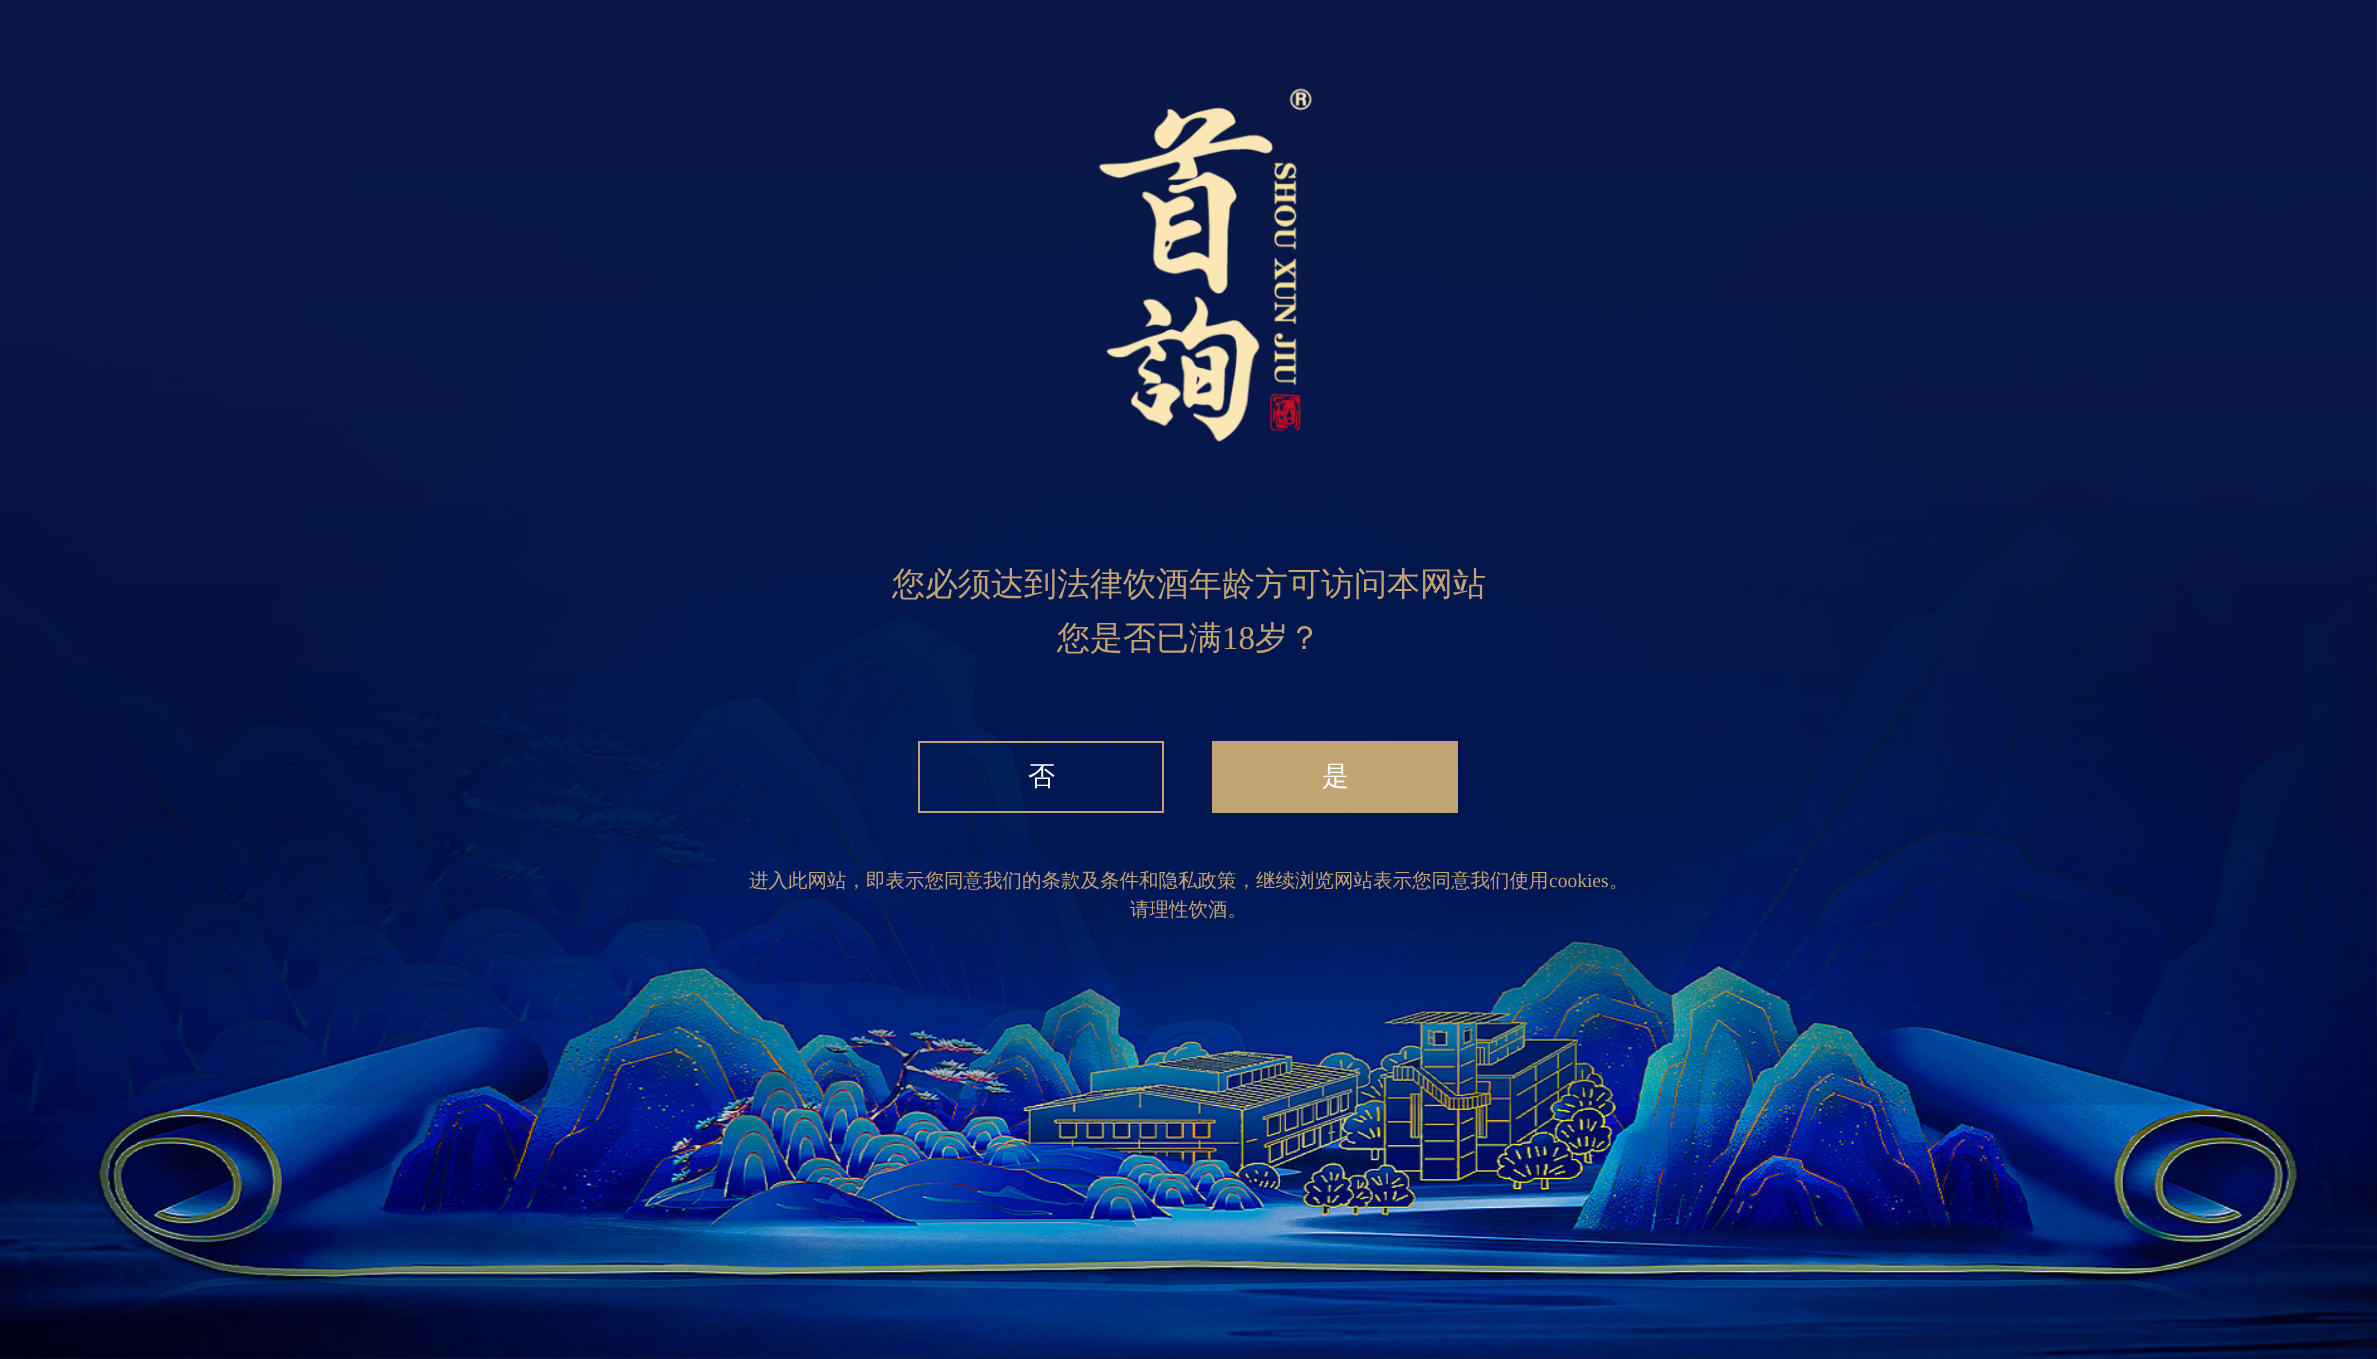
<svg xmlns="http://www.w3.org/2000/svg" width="2377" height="1359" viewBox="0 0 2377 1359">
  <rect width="100%" height="100%" fill="#ffffff"/>
  <image x="0" y="523" width="2377" height="836" href="img1.png"/>
  <image x="338" y="1358" width="303" height="1" href="img2.png"/>
  <image x="1040" y="1358" width="297" height="1" href="img3.png"/>
  <image x="1739" y="1358" width="301" height="1" href="img4.png"/>
  <image x="0" y="0" width="2377" height="1359" href="img5.png"/>
  <image x="1098" y="88" width="214" height="354" href="img6.png"/>
  <text x="892" y="595" font-family="WenQuanYi Zen Hei" font-size="33" font-weight="500" fill="#c2a374">您必须达到法律饮酒年龄方可访问本网站</text>
  <text x="1057" y="649" font-family="WenQuanYi Zen Hei" font-size="33" font-weight="500" fill="#c2a374">您是否已满</text>
  <text x="1222" y="649" font-family="Liberation Serif" font-size="33" fill="#c2a374">18</text>
  <text x="1255" y="649" font-family="WenQuanYi Zen Hei" font-size="33" font-weight="500" fill="#c2a374">岁？</text>
  <rect x="919" y="742" width="244" height="70" fill="none" stroke="#c2a374" stroke-width="2"/>
  <text x="1028" y="785" font-family="WenQuanYi Zen Hei" font-size="27" font-weight="500" fill="#ffffff">否</text>
  <rect x="1212" y="741" width="246" height="72" fill="#c2a374"/>
  <text x="1322" y="785" font-family="WenQuanYi Zen Hei" font-size="27" font-weight="500" fill="#ffffff">是</text>
  <text x="749" y="887" font-family="WenQuanYi Zen Hei" font-size="19.5" font-weight="500" fill="#c2a374">进入此网站，即表示您同意我们的条款及条件和隐私政策，继续浏览网站表示您同意我们使用</text>
  <text x="1549" y="887" font-family="Liberation Serif" font-size="19.5" fill="#c2a374">cookies</text>
  <text x="1609" y="887" font-family="WenQuanYi Zen Hei" font-size="19.5" font-weight="500" fill="#c2a374">。</text>
  <text x="1130" y="916" font-family="WenQuanYi Zen Hei" font-size="19.5" font-weight="500" fill="#c2a374">请理性饮酒。</text>
</svg>
